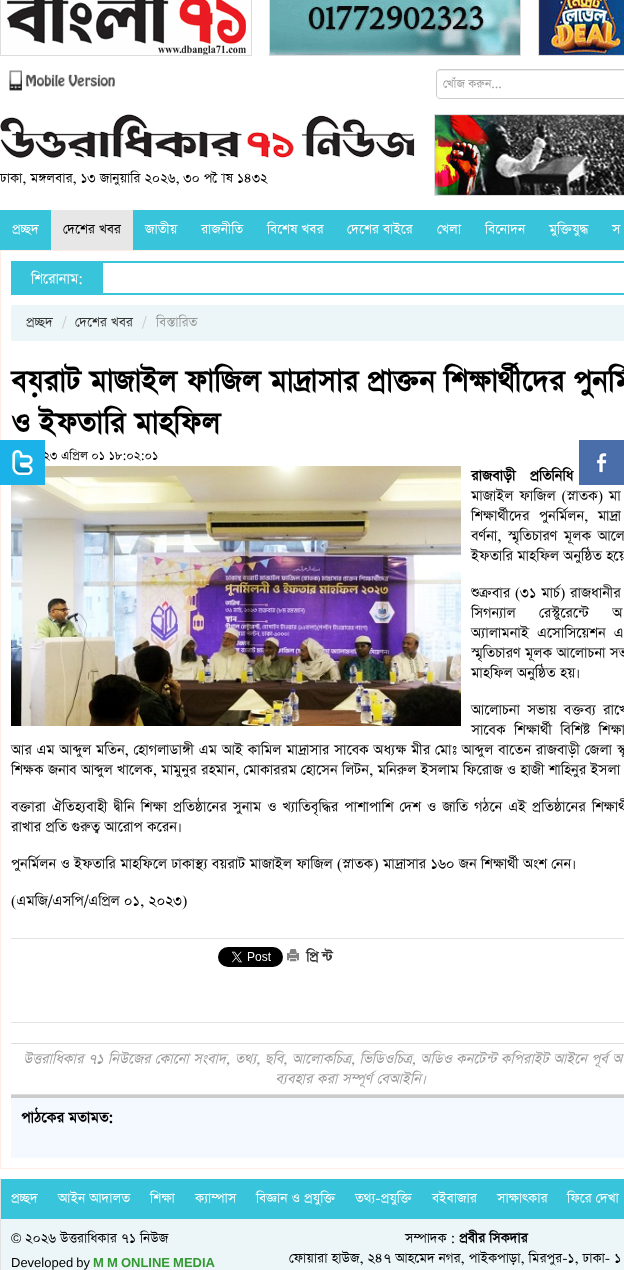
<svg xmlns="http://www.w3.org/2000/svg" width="624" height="1270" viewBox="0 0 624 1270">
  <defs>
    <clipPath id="clip1"><rect x="443" y="76" width="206" height="16"/></clipPath>
  </defs>
  <rect width="100%" height="100%" fill="#ffffff"/>
  <rect x="0.5" y="-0.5" width="251" height="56" fill="none" stroke="#dddddd"/>
  <image x="1" y="0" width="250" height="55" href="img1.png"/>
  <rect x="269.5" y="-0.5" width="251" height="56" fill="none" stroke="#dddddd"/>
  <image x="270" y="0" width="250" height="55" href="img2.png"/>
  <rect x="538.5" y="-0.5" width="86" height="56" fill="none" stroke="#dddddd"/>
  <image x="539" y="0" width="85" height="55" href="img3.png"/>
  <image x="9" y="70" width="106" height="21" href="img4.png"/>
  <path d="M440 71H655V70H440C438 70 437 71 437 73V74C437 72 438 71 440 71Z" fill="#ececec"/>
  <path d="M440 69.5H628.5V98.5H440C438 98.5 436.5 97 436.5 95V73C436.5 71 438 69.5 440 69.5Z" fill="none" stroke="#cccccc"/>
  <g clip-path="url(#clip1)">
    <text x="443" y="88" font-family="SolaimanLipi" font-size="14" fill="#999999">খোঁজ করুন...</text>
  </g>
  <image x="0" y="114" width="415" height="45" href="img5.png"/>
  <text x="0" y="183" font-family="SolaimanLipi" font-size="16" fill="#000000">ঢাকা, মঙ্গলবার, ১৩ জানুয়ারি ২০২৬, ৩০ পৌষ ১৪৩২</text>
  <rect x="434.5" y="114.5" width="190" height="81" fill="none" stroke="#dddddd"/>
  <image x="435" y="115" width="189" height="80" href="img6.png"/>
  <rect x="0" y="210" width="624" height="40" fill="#38c4db"/>
  <text x="12" y="234" font-family="SolaimanLipi" font-size="16" fill="#ffffff">প্রচ্ছদ</text>
  <rect x="51" y="210" width="82" height="40" fill="#e7e7e7"/>
  <text x="63" y="234" font-family="SolaimanLipi" font-size="16" fill="#000000">দেশের খবর</text>
  <text x="145" y="234" font-family="SolaimanLipi" font-size="16" fill="#ffffff">জাতীয়</text>
  <text x="201" y="234" font-family="SolaimanLipi" font-size="16" fill="#ffffff">রাজনীতি</text>
  <text x="267" y="234" font-family="SolaimanLipi" font-size="16" fill="#ffffff">বিশেষ খবর</text>
  <text x="347" y="234" font-family="SolaimanLipi" font-size="16" fill="#ffffff">দেশের বাইরে</text>
  <text x="437" y="234" font-family="SolaimanLipi" font-size="16" fill="#ffffff">খেলা</text>
  <text x="485" y="234" font-family="SolaimanLipi" font-size="16" fill="#ffffff">বিনোদন</text>
  <text x="549" y="234" font-family="SolaimanLipi" font-size="16" fill="#ffffff">মুক্তিযুদ্ধ</text>
  <text x="612" y="234" font-family="SolaimanLipi" font-size="16" fill="#ffffff">স</text>
  <rect x="0.5" y="250.5" width="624" height="918" fill="none" stroke="#ffeee6"/>
  <rect x="11" y="261" width="613" height="2" fill="#38c4db"/>
  <rect x="11" y="293" width="613" height="2" fill="#38c4db"/>
  <rect x="11" y="263" width="92" height="30" fill="#38c4db"/>
  <text x="31" y="284" font-family="SolaimanLipi" font-size="17" fill="#ffffff">শিরোনাম:</text>
  <rect x="11" y="305" width="613" height="36" fill="#ecf6f8"/>
  <text x="26" y="327" font-family="SolaimanLipi" font-size="16" fill="#353535">প্রচ্ছদ</text>
  <text x="62" y="327" font-family="SolaimanLipi" font-size="16" fill="#cccccc">/</text>
  <text x="75" y="327" font-family="SolaimanLipi" font-size="16" fill="#353535">দেশের খবর</text>
  <text x="142" y="327" font-family="SolaimanLipi" font-size="16" fill="#cccccc">/</text>
  <text x="156" y="327" font-family="SolaimanLipi" font-size="16" fill="#999999">বিস্তারিত</text>
  <text x="11" y="392" font-family="SolaimanLipi" font-size="35" font-weight="bold" fill="#000000">বয়রাট মাজাইল ফাজিল মাদ্রাসার প্রাক্তন শিক্ষার্থীদের পুনর্মি</text>
  <text x="11" y="434" font-family="SolaimanLipi" font-size="35" font-weight="bold" fill="#000000">ও ইফতারি মাহফিল</text>
  <text x="43" y="460" font-family="SolaimanLipi" font-size="14.5" fill="#000000">২৩ এপ্রিল ০১ ১৮:০২:০১</text>
  <image x="11" y="466" width="450" height="260" href="img7.png"/>
  <text x="471" y="481" word-spacing="10" font-family="SolaimanLipi" font-size="17" font-weight="bold" fill="#000000">রাজবাড়ী প্রতিনিধি</text>
  <text x="471" y="501" word-spacing="1.5" font-family="SolaimanLipi" font-size="17" fill="#000000">মাজাইল ফাজিল (স্নাতক) মা</text>
  <text x="471" y="521" word-spacing="5" font-family="SolaimanLipi" font-size="17" fill="#000000">শিক্ষার্থীদের পুনর্মিলন, মাদ্রা</text>
  <text x="471" y="541" word-spacing="2" font-family="SolaimanLipi" font-size="17" fill="#000000">বর্ণনা, স্মৃতিচারণ মূলক আলো</text>
  <text x="471" y="561" font-family="SolaimanLipi" font-size="17" fill="#000000">ইফতারি মাহফিল অনুষ্ঠিত হয়ে</text>
  <text x="471" y="598" word-spacing="0.5" font-family="SolaimanLipi" font-size="17" fill="#000000">শুক্রবার (৩১ মার্চ) রাজধানীর</text>
  <text x="471" y="618" word-spacing="19" font-family="SolaimanLipi" font-size="17" fill="#000000">সিগন্যাল রেস্টুরেন্টে অ</text>
  <text x="471" y="638" word-spacing="4" font-family="SolaimanLipi" font-size="17" fill="#000000">অ্যালামনাই এসোসিয়েশন এ</text>
  <text x="471" y="658" font-family="SolaimanLipi" font-size="17" fill="#000000">স্মৃতিচারণ মূলক আলোচনা সভ</text>
  <text x="471" y="678" font-family="SolaimanLipi" font-size="17" fill="#000000">মাহফিল অনুষ্ঠিত হয়।</text>
  <text x="471" y="715" word-spacing="3" font-family="SolaimanLipi" font-size="17" fill="#000000">আলোচনা সভায় বক্তব্য রাখে</text>
  <text x="471" y="735" word-spacing="4" font-family="SolaimanLipi" font-size="17" fill="#000000">সাবেক শিক্ষার্থী বিশিষ্ট শিক্ষা</text>
  <text x="11" y="755" word-spacing="0.4" font-family="SolaimanLipi" font-size="17" fill="#000000">আর এম আব্দুল মতিন, হোগলাডাঙ্গী এম আই কামিল মাদ্রাসার সাবেক অধ্যক্ষ মীর মোঃ আব্দুল বাতেন রাজবাড়ী জেলা স্কু</text>
  <text x="11" y="775" font-family="SolaimanLipi" font-size="17" fill="#000000">শিক্ষক জনাব আব্দুল খালেক, মামুনুর রহমান, মোকাররম হোসেন লিটন, মনিরুল ইসলাম ফিরোজ ও হাজী শাহিনুর ইসলা</text>
  <text x="11" y="812" word-spacing="1.8" font-family="SolaimanLipi" font-size="17" fill="#000000">বক্তারা ঐতিহ্যবাহী দ্বীনি শিক্ষা প্রতিষ্ঠানের সুনাম ও খ্যাতিবৃদ্ধির পাশাপাশি দেশ ও জাতি গঠনে এই প্রতিষ্ঠানের শিক্ষার্থী</text>
  <text x="11" y="832" font-family="SolaimanLipi" font-size="17" fill="#000000">রাখার প্রতি গুরুত্ব আরোপ করেন।</text>
  <text x="11" y="869" font-family="SolaimanLipi" font-size="17" fill="#000000">পুনর্মিলন ও ইফতারি মাহফিলে ঢাকাস্থ্য বয়রাট মাজাইল ফাজিল (স্নাতক) মাদ্রাসার ১৬০ জন শিক্ষার্থী অংশ নেন।</text>
  <text x="11" y="906" font-family="SolaimanLipi" font-size="17" fill="#000000">(এমজি/এসপি/এপ্রিল ০১, ২০২৩)</text>
  <rect x="11" y="938" width="613" height="1" fill="#e2e2e2"/>
  <rect x="11" y="1022" width="613" height="1" fill="#e2e2e2"/>
  <image x="218" y="947" width="65" height="20" href="img8.png"/>
  <image x="287" y="949" width="12" height="13" href="img9.png"/>
  <text x="306" y="962" font-family="SolaimanLipi" font-size="17" font-weight="bold" letter-spacing="3" fill="#353535">প্রিন্ট</text>
  <rect x="11" y="1043" width="613" height="1" fill="#dddddd"/>
  <rect x="11" y="1094" width="613" height="1" fill="#dddddd"/>
  <text x="23" y="1064" font-family="SolaimanLipi" font-size="17" font-style="italic" fill="#999999">উত্তরাধিকার ৭১ নিউজের কোনো সংবাদ, তথ্য, ছবি, আলোকচিত্র, ভিডিওচিত্র, অডিও কনটেন্ট কপিরাইট আইনে পূর্ব অ</text>
  <text x="275" y="1084" font-family="SolaimanLipi" font-size="17" font-style="italic" fill="#999999">ব্যবহার করা সম্পূর্ণ বেআইনি।</text>
  <rect x="11" y="1098" width="613" height="60" fill="#f3f9ff"/>
  <rect x="11" y="1095" width="613" height="3" fill="#cccccc"/>
  <text x="21" y="1123" font-family="SolaimanLipi" font-size="17.5" font-weight="bold" fill="#000000">পাঠকের মতামত:</text>
  <rect x="1" y="1219" width="623" height="51" fill="#ecf6f8"/>
  <rect x="0" y="1179" width="1" height="91" fill="#e2e2e2"/>
  <rect x="1" y="1179" width="623" height="40" fill="#38c4db"/>
  <text x="11" y="1203" font-family="SolaimanLipi" font-size="16" fill="#ffffff">প্রচ্ছদ</text>
  <text x="58" y="1203" font-family="SolaimanLipi" font-size="16" fill="#ffffff">আইন আদালত</text>
  <text x="150" y="1203" font-family="SolaimanLipi" font-size="16" fill="#ffffff">শিক্ষা</text>
  <text x="195" y="1203" font-family="SolaimanLipi" font-size="16" fill="#ffffff">ক্যাম্পাস</text>
  <text x="256" y="1203" font-family="SolaimanLipi" font-size="16" fill="#ffffff">বিজ্ঞান ও প্রযুক্তি</text>
  <text x="355" y="1203" font-family="SolaimanLipi" font-size="16" fill="#ffffff">তথ্য-প্রযুক্তি</text>
  <text x="432" y="1203" font-family="SolaimanLipi" font-size="16" fill="#ffffff">বইবাজার</text>
  <text x="497" y="1203" font-family="SolaimanLipi" font-size="16" fill="#ffffff">সাক্ষাৎকার</text>
  <text x="567" y="1203" font-family="SolaimanLipi" font-size="16" fill="#ffffff">ফিরে দেখা</text>
  <text x="11" y="1243" font-family="Liberation Sans" font-size="14" fill="#000000">©</text>
  <text x="25" y="1243" font-family="SolaimanLipi" font-size="16" fill="#000000">২০২৬ উত্তরাধিকার ৭১ নিউজ</text>
  <text x="11" y="1267" word-spacing="-0.5" font-family="Liberation Sans" font-size="13" fill="#000000">Developed by</text>
  <text x="93" y="1267" word-spacing="-0.5" font-family="Liberation Sans" font-size="13" font-weight="bold" fill="#339933">M M ONLINE MEDIA</text>
  <text x="405" y="1243" font-family="SolaimanLipi" font-size="16" fill="#000000">সম্পাদক :</text>
  <text x="459" y="1243" font-family="SolaimanLipi" font-size="16" font-weight="bold" fill="#000000">প্রবীর সিকদার</text>
  <text x="289" y="1263" font-family="SolaimanLipi" font-size="16" fill="#000000">ফোয়ারা হাউজ, ২৪৭ আহমেদ নগর, পাইকপাড়া, মিরপুর-১, ঢাকা- ১</text>
  <rect x="0" y="440" width="45" height="45" fill="#1ab2e8"/>
  <image x="12" y="450" width="21" height="25" href="img10.png"/>
  <rect x="579" y="440" width="45" height="45" fill="#4a6ea9"/>
  <image x="596" y="452" width="11" height="21" href="img11.png"/>
</svg>
